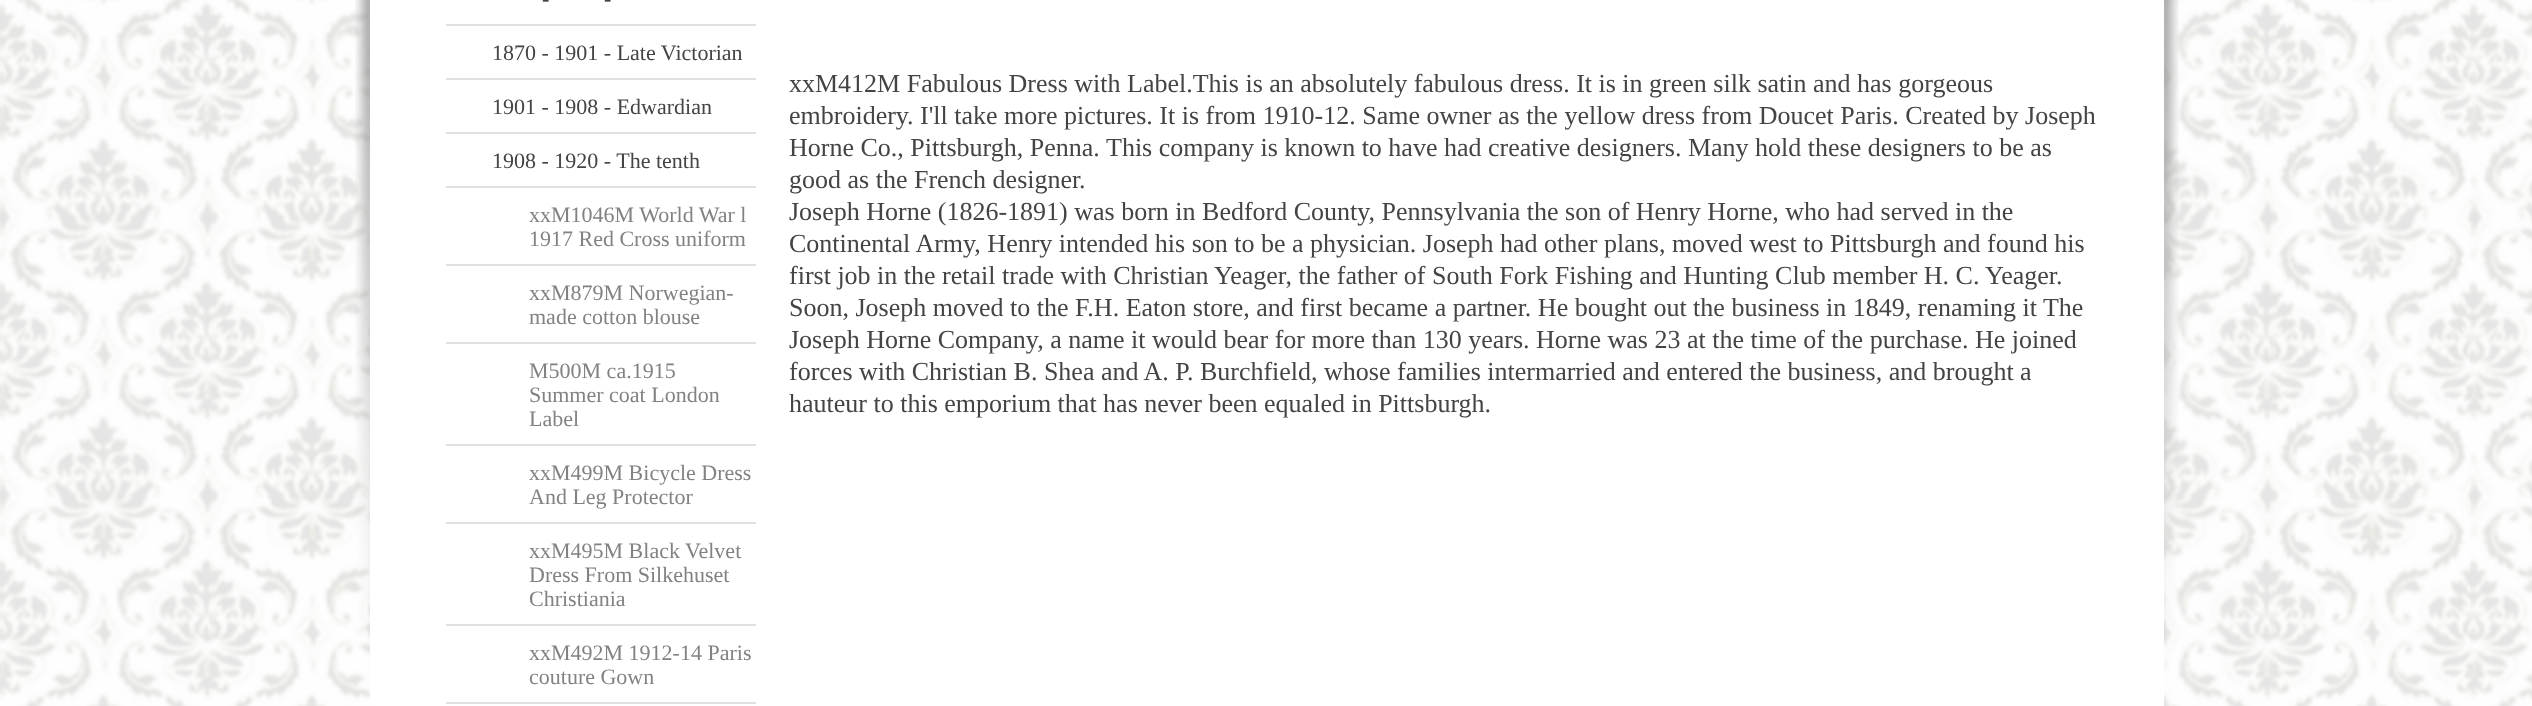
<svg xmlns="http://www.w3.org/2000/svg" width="2532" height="706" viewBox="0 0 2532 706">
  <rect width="100%" height="100%" fill="#ffffff"/>
  <image x="0" y="0" width="2532" height="706" href="img1.png"/>
  <image x="355" y="0" width="15" height="643" href="img2.png"/>
  <rect x="370" y="0" width="1794" height="706" fill="#ffffff"/>
  <text x="542" y="6" font-family="Liberation Serif" font-size="22" fill="#444444">-</text>
  <text x="604" y="6" font-family="Liberation Serif" font-size="22" fill="#444444">-</text>
  <rect x="446" y="24" width="310" height="2" fill="#e0e0e0"/>
  <text x="492" y="60" font-family="Liberation Serif" font-size="22" fill="#444444">1870 - 1901 - Late Victorian</text>
  <rect x="446" y="78" width="310" height="2" fill="#e0e0e0"/>
  <text x="492" y="114" font-family="Liberation Serif" font-size="22" fill="#444444">1901 - 1908 - Edwardian</text>
  <rect x="446" y="132" width="310" height="2" fill="#e0e0e0"/>
  <text x="492" y="168" font-family="Liberation Serif" font-size="22" fill="#444444">1908 - 1920 - The tenth</text>
  <rect x="446" y="186" width="310" height="2" fill="#e0e0e0"/>
  <text x="529" y="222" font-family="Liberation Serif" font-size="22" fill="#828282">xxM1046M World War l</text>
  <text x="529" y="246" font-family="Liberation Serif" font-size="22" fill="#828282">1917 Red Cross uniform</text>
  <rect x="446" y="264" width="310" height="2" fill="#e0e0e0"/>
  <text x="529" y="300" font-family="Liberation Serif" font-size="22" fill="#828282">xxM879M Norwegian-</text>
  <text x="529" y="324" font-family="Liberation Serif" font-size="22" fill="#828282">made cotton blouse</text>
  <rect x="446" y="342" width="310" height="2" fill="#e0e0e0"/>
  <text x="529" y="378" font-family="Liberation Serif" font-size="22" fill="#828282">M500M ca.1915</text>
  <text x="529" y="402" font-family="Liberation Serif" font-size="22" fill="#828282">Summer coat London</text>
  <text x="529" y="426" font-family="Liberation Serif" font-size="22" fill="#828282">Label</text>
  <rect x="446" y="444" width="310" height="2" fill="#e0e0e0"/>
  <text x="529" y="480" font-family="Liberation Serif" font-size="22" fill="#828282">xxM499M Bicycle Dress</text>
  <text x="529" y="504" font-family="Liberation Serif" font-size="22" fill="#828282">And Leg Protector</text>
  <rect x="446" y="522" width="310" height="2" fill="#e0e0e0"/>
  <text x="529" y="558" font-family="Liberation Serif" font-size="22" fill="#828282">xxM495M Black Velvet</text>
  <text x="529" y="582" font-family="Liberation Serif" font-size="22" fill="#828282">Dress From Silkehuset</text>
  <text x="529" y="606" font-family="Liberation Serif" font-size="22" fill="#828282">Christiania</text>
  <rect x="446" y="624" width="310" height="2" fill="#e0e0e0"/>
  <text x="529" y="660" font-family="Liberation Serif" font-size="22" fill="#828282">xxM492M 1912-14 Paris</text>
  <text x="529" y="684" font-family="Liberation Serif" font-size="22" fill="#828282">couture Gown</text>
  <rect x="446" y="702" width="310" height="2" fill="#e0e0e0"/>
  <text x="789" y="92" font-family="Liberation Serif" font-size="26" fill="#444444">xxM412M Fabulous Dress with Label.This is an absolutely fabulous dress. It is in green silk satin and has gorgeous</text>
  <text x="789" y="124" font-family="Liberation Serif" font-size="26" fill="#444444">embroidery</text>
  <text x="907" y="124" font-family="Liberation Serif" font-size="26" fill="#444444">. I'll take more pictures. It is from 1910-12. Same owner as the yellow dress from Doucet Paris. Created by Joseph</text>
  <text x="789" y="156" font-family="Liberation Serif" font-size="26" fill="#444444">Horne Co., Pittsburgh, Penna.</text>
  <text x="1106" y="156" font-family="Liberation Serif" font-size="26" fill="#444444">This company is known to have had creative designers. Many hold these designers to be as</text>
  <text x="789" y="188" font-family="Liberation Serif" font-size="26" fill="#444444">good as the French designer</text>
  <text x="1079" y="188" font-family="Liberation Serif" font-size="26" fill="#444444">.</text>
  <text x="789" y="220" font-family="Liberation Serif" font-size="26" fill="#444444">Joseph Horne (1826-1891) was born in Bedford County, Pennsylvania the son of Henry Horne, who had served in the</text>
  <text x="789" y="252" font-family="Liberation Serif" font-size="26" fill="#444444">Continental Army, Henry intended his son to be a physician. Joseph had other plans, moved west to Pittsburgh and found his</text>
  <text x="789" y="284" font-family="Liberation Serif" font-size="26" fill="#444444">first job in the retail trade with Christian Yeager, the father of South Fork Fishing and Hunting Club member H. C. Yeager.</text>
  <text x="789" y="316" font-family="Liberation Serif" font-size="26" fill="#444444">Soon, Joseph moved to the F.H. Eaton store, and first became a partner. He bought out the business in 1849, renaming it The</text>
  <text x="789" y="348" font-family="Liberation Serif" font-size="26" fill="#444444">Joseph Horne Company, a name it would bear for more than 130 years. Horne was 23 at the time of the purchase. He joined</text>
  <text x="789" y="380" font-family="Liberation Serif" font-size="26" fill="#444444">forces with Christian B. Shea and A. P. Burchfield, whose families intermarried and entered the business, and brought a</text>
  <text x="789" y="412" font-family="Liberation Serif" font-size="26" fill="#444444">hauteur to this emporium that has never been equaled in Pittsburgh.</text>
  <image x="2164" y="0" width="15" height="643" href="img3.png"/>
</svg>
